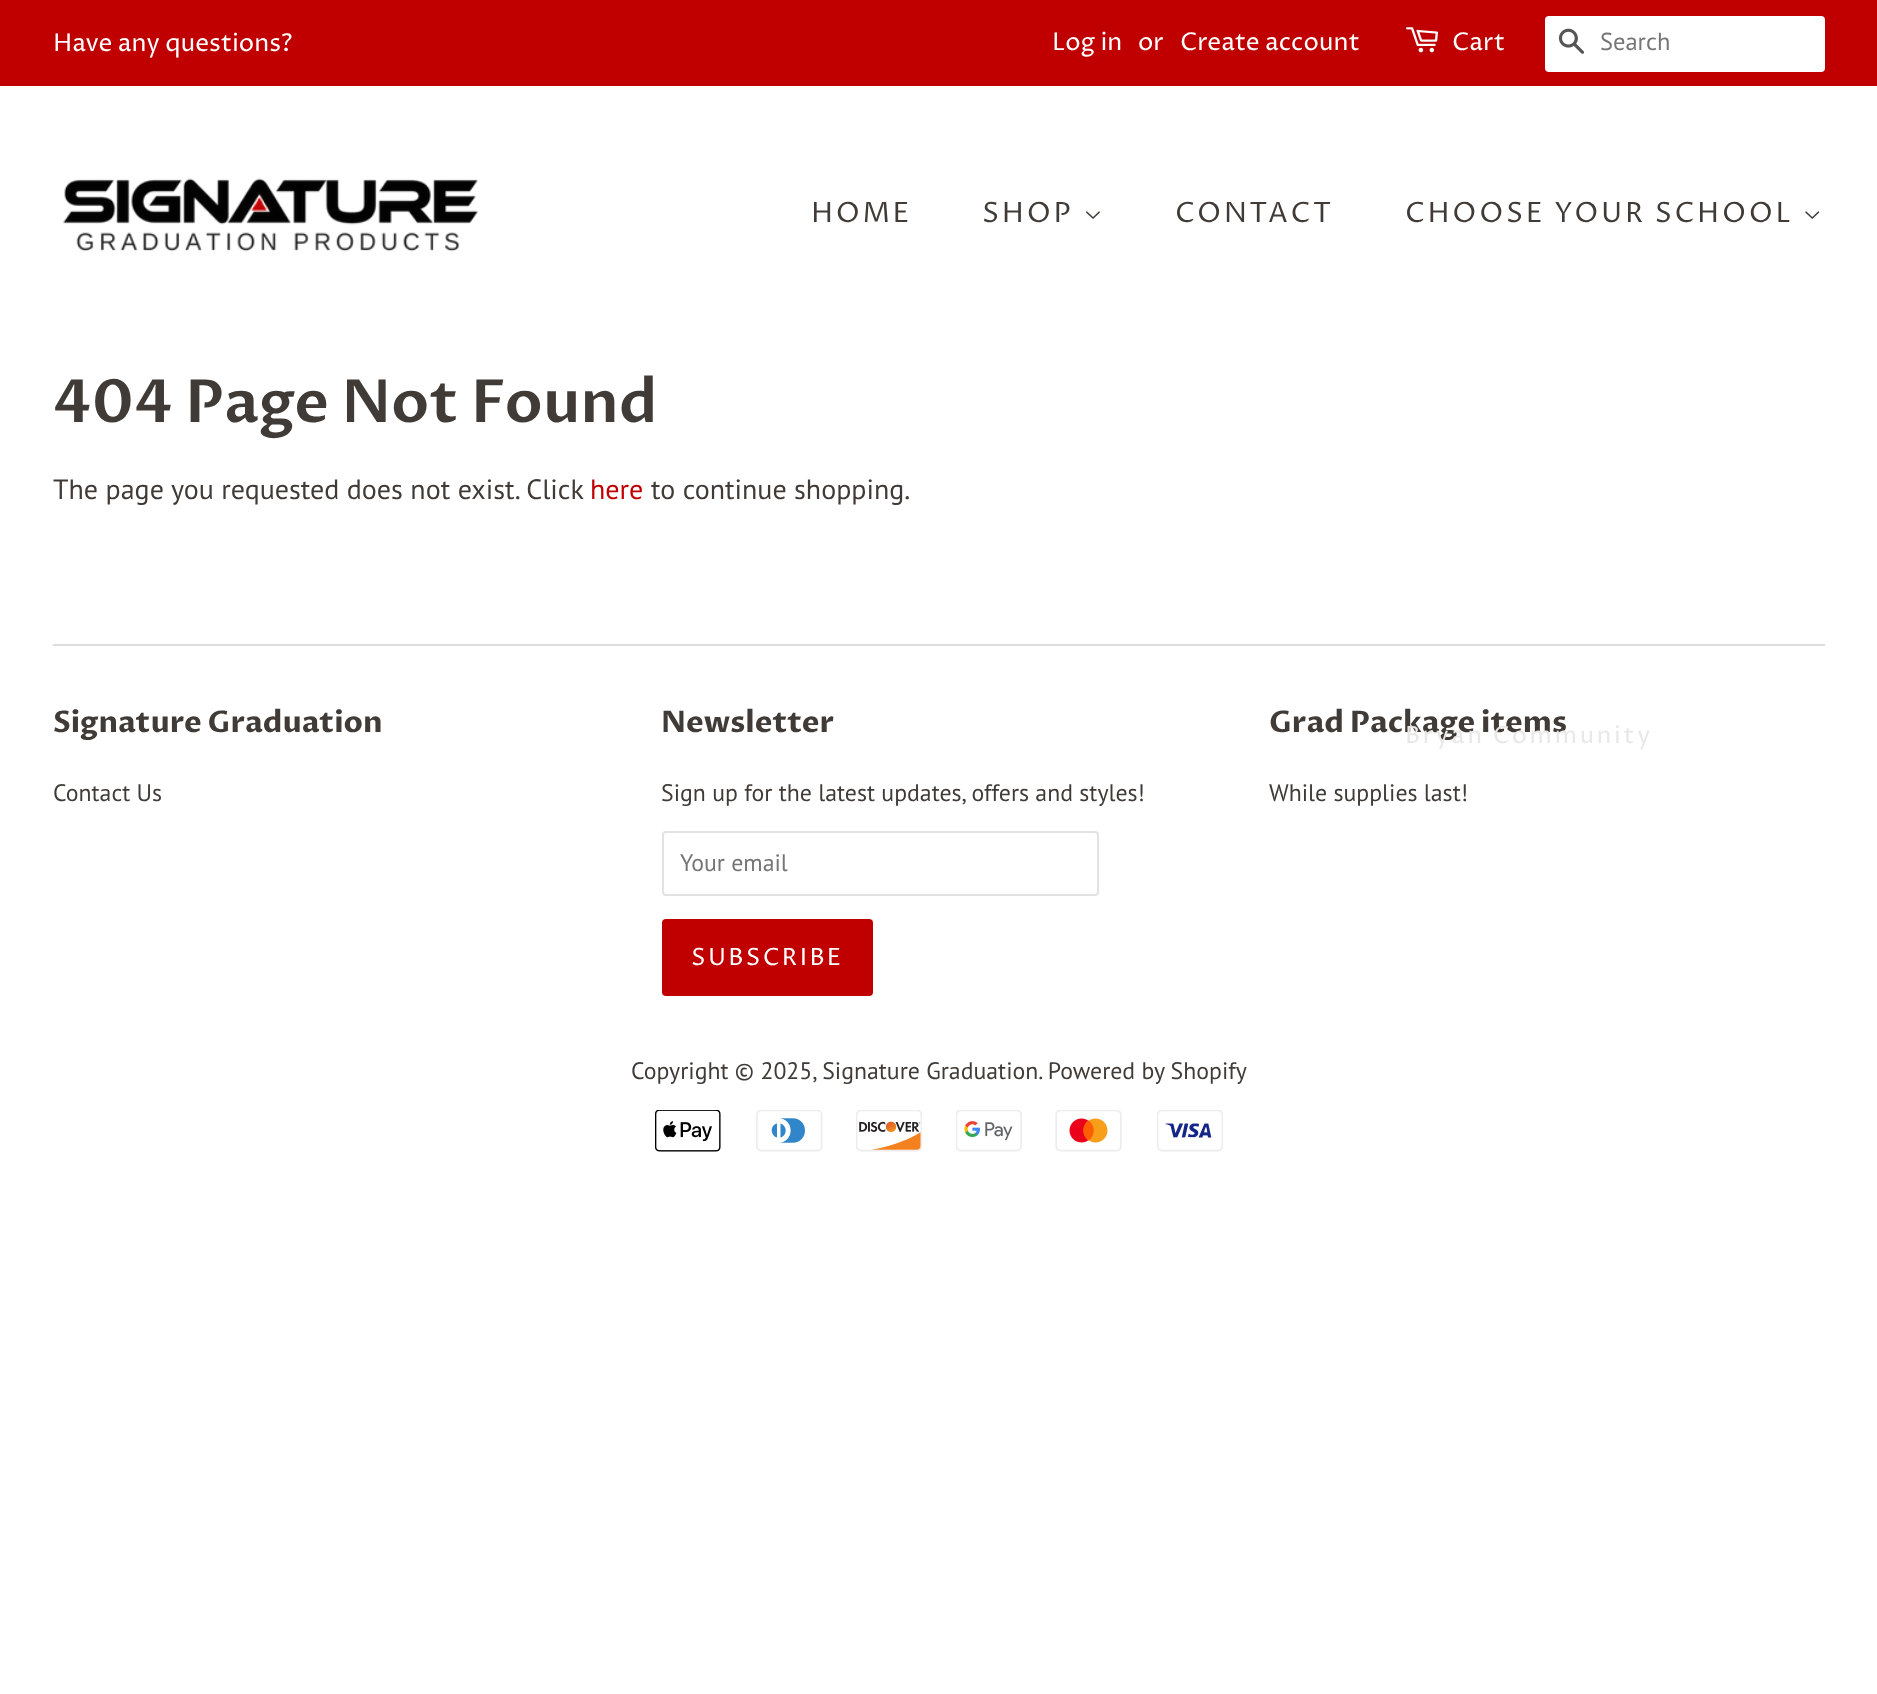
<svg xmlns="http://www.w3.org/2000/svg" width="1877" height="1694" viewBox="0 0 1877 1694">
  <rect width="100%" height="100%" fill="#ffffff"/>
  <rect x="0" y="0" width="1877" height="86" fill="#c00000"/>
  <text x="53" y="51" font-family="Proza Libre" font-size="24.5" fill="#ffffff">Have any questions?</text>
  <text x="1052" y="50" font-family="Proza Libre" font-size="24.5" fill="#ffffff">Log in</text>
  <text x="1138" y="50" font-family="Proza Libre" font-size="24.5" fill="#ffffff">or</text>
  <text x="1180" y="50" font-family="Proza Libre" font-size="24.5" fill="#ffffff">Create account</text>
  <image x="1406" y="27" width="32" height="26" href="img1.png"/>
  <text x="1452" y="50" font-family="Proza Libre" font-size="24.5" fill="#ffffff">Cart</text>
  <rect x="1545" y="16" width="280" height="56" rx="4" fill="#ffffff"/>
  <image x="1558" y="28" width="27" height="26" href="img2.png"/>
  <text x="1600" y="50" font-family="PT Sans" font-size="24.5" fill="#757575">Search</text>
  <image x="63" y="178" width="415" height="74" href="img3.png"/>
  <text x="811" y="222" font-family="Proza Libre" font-size="28" letter-spacing="2.75" fill="#403b37">HOME</text>
  <text x="982" y="222" font-family="Proza Libre" font-size="28" letter-spacing="2.75" fill="#403b37">SHOP</text>
  <image x="1086" y="211" width="14" height="8" href="img4.png"/>
  <text x="1175" y="222" font-family="Proza Libre" font-size="28" letter-spacing="2.75" fill="#403b37">CONTACT</text>
  <text x="1405" y="222" font-family="Proza Libre" font-size="28" letter-spacing="2.75" fill="#403b37">CHOOSE YOUR SCHOOL</text>
  <image x="1805" y="211" width="15" height="8" href="img5.png"/>
  <text x="1269" y="732" font-family="Proza Libre" font-size="29.75" font-weight="bold" fill="#403b37">Grad Package items</text>
  <text x="1405" y="743" font-family="Proza Libre" font-size="23.8" letter-spacing="2.75" fill="#e9e8e8">Bryan Community</text>
  <text x="53" y="422" font-family="Proza Libre" font-size="59.5" font-weight="600" fill="#403b37">404 Page Not Found</text>
  <text x="53" y="499" font-family="PT Sans" font-size="28" fill="#403b37">The page you requested does not exist. Click</text>
  <text x="590" y="499" font-family="PT Sans" font-size="28" fill="#c00000">here</text>
  <text x="651" y="499" font-family="PT Sans" font-size="28" fill="#403b37">to continue shopping.</text>
  <rect x="53" y="644" width="1772" height="2" fill="#dddddd"/>
  <text x="53" y="732" font-family="Proza Libre" font-size="29.75" font-weight="bold" fill="#403b37">Signature Graduation</text>
  <text x="53" y="801" font-family="PT Sans" font-size="23.8" fill="#403b37">Contact Us</text>
  <text x="661" y="732" font-family="Proza Libre" font-size="29.75" font-weight="bold" fill="#403b37">Newsletter</text>
  <text x="661" y="801" font-family="PT Sans" font-size="23.8" fill="#403b37">Sign up for the latest updates, offers and styles!</text>
  <rect x="663" y="832" width="435" height="63" rx="3" fill="none" stroke="#e2e2e1" stroke-width="2"/>
  <text x="680" y="871" font-family="PT Sans" font-size="23.8" fill="#757575">Your email</text>
  <rect x="662" y="919" width="211" height="77" rx="4" fill="#c00000"/>
  <text x="691" y="965" font-family="Proza Libre" font-size="23.8" letter-spacing="2.4" fill="#ffffff">SUBSCRIBE</text>
  <text x="1269" y="801" font-family="PT Sans" font-size="23.8" fill="#403b37">While supplies last!</text>
  <text x="631" y="1079" font-family="PT Sans" font-size="23.8" fill="#403b37">Copyright © 2025, Signature Graduation. Powered by Shopify</text>
  <image x="655" y="1110" width="66" height="42" href="img6.png"/>
  <image x="756" y="1110" width="67" height="42" href="img7.png"/>
  <image x="856" y="1110" width="66" height="42" href="img8.png"/>
  <image x="956" y="1110" width="66" height="42" href="img9.png"/>
  <image x="1055" y="1110" width="67" height="42" href="img10.png"/>
  <image x="1157" y="1110" width="66" height="42" href="img11.png"/>
</svg>
